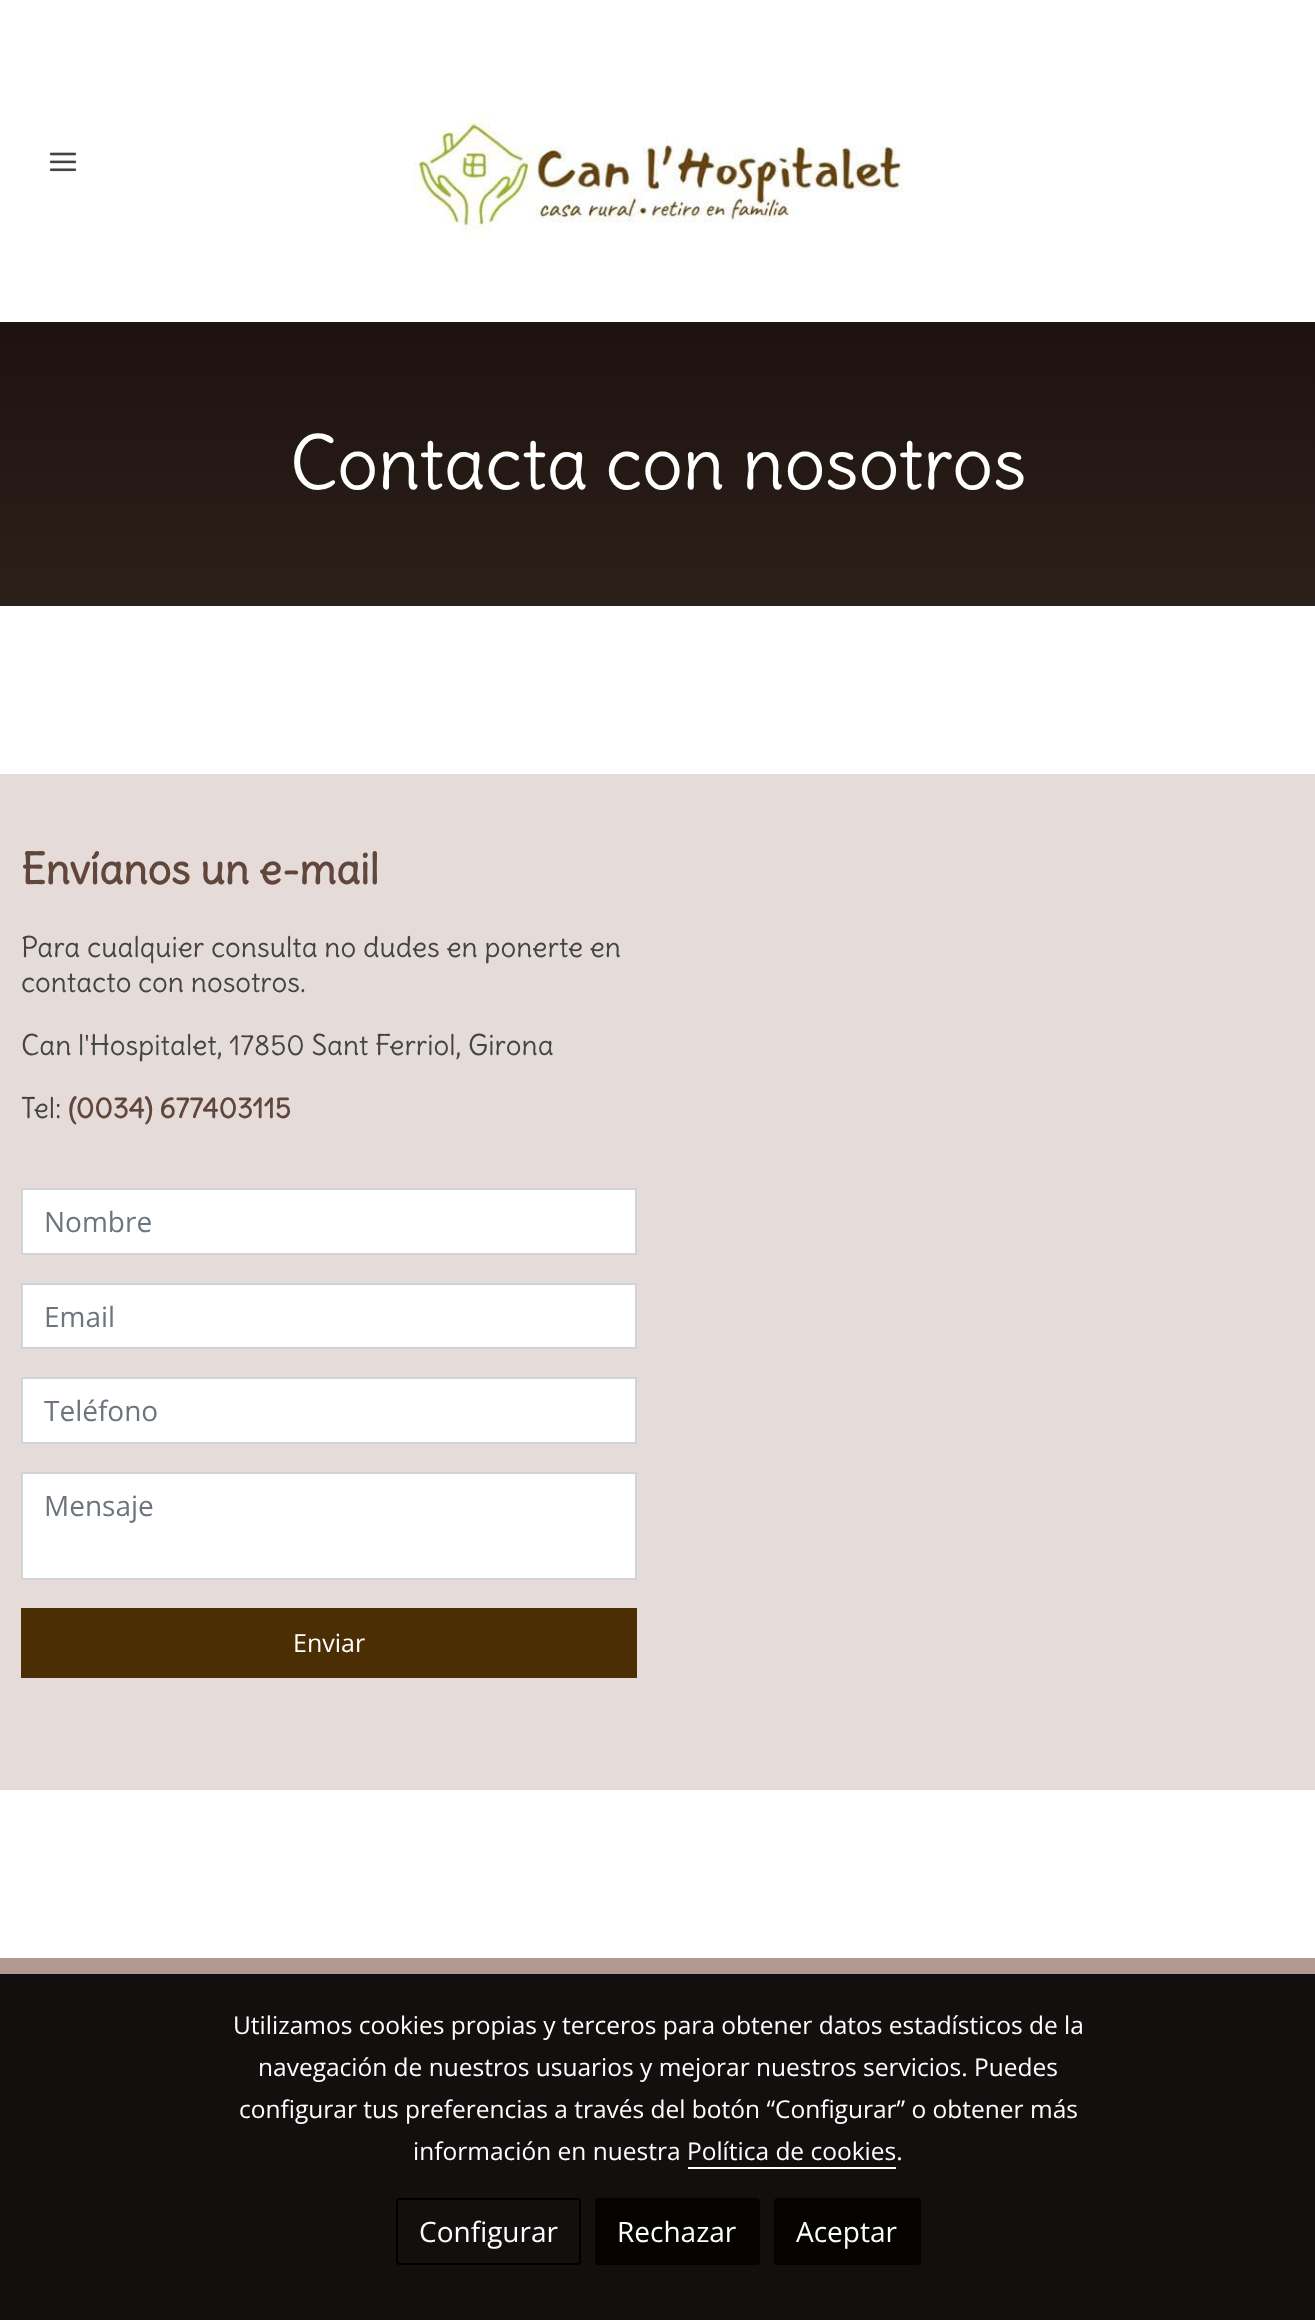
<svg xmlns="http://www.w3.org/2000/svg" width="1315" height="2320" viewBox="0 0 1315 2320">
  <defs>
    <linearGradient id="g1" gradientUnits="userSpaceOnUse" x1="658" y1="606" x2="658" y2="0"><stop offset="0" stop-color="#60463b" stop-opacity="0.45"/><stop offset="1" stop-color="#200600" stop-opacity="0.45"/></linearGradient>
  </defs>
  <rect width="100%" height="100%" fill="#ffffff"/>
  <image x="49" y="152" width="28" height="20" href="img1.png"/>
  <image x="413" y="115" width="490" height="123" href="img2.png"/>
  <rect x="0" y="322" width="1315" height="284" fill="#000000"/>
  <rect x="0" y="322" width="1315" height="284" fill="url(#g1)"/>
  <text x="290" y="489" font-family="Delius" font-size="72.75" fill="#ffffff">Contacta con nosotros</text>
  <rect x="0" y="774" width="1315" height="1016" fill="#e5dcd9"/>
  <text x="21" y="884" font-family="Delius" font-size="42" font-weight="bold" fill="#60463b">Envíanos un e-mail</text>
  <text x="21" y="957" font-family="Delius" font-size="28" fill="#444444">Para cualquier consulta no dudes en ponerte en</text>
  <text x="21" y="992" font-family="Delius" font-size="28" fill="#444444">contacto con nosotros.</text>
  <text x="21" y="1055" font-family="Delius" font-size="28" fill="#444444">Can l'Hospitalet, 17850 Sant Ferriol, Girona</text>
  <text x="21" y="1118" font-family="Delius" font-size="28" fill="#444444">Tel:</text>
  <text x="68" y="1118" font-family="Delius" font-size="28" font-weight="bold" fill="#60463b">(0034) 677403115</text>
  <rect x="22" y="1189" width="614" height="65" fill="#ffffff" stroke="#ced4da" stroke-width="2"/>
  <text x="44" y="1232" font-family="Open Sans" font-size="28" fill="#6c757d">Nombre</text>
  <rect x="22" y="1284" width="614" height="64" fill="#ffffff" stroke="#ced4da" stroke-width="2"/>
  <text x="44" y="1327" font-family="Open Sans" font-size="28" fill="#6c757d">Email</text>
  <rect x="22" y="1378" width="614" height="65" fill="#ffffff" stroke="#ced4da" stroke-width="2"/>
  <text x="44" y="1421" font-family="Open Sans" font-size="28" fill="#6c757d">Teléfono</text>
  <rect x="22" y="1473" width="614" height="106" fill="#ffffff" stroke="#ced4da" stroke-width="2"/>
  <text x="44" y="1516" font-family="Open Sans" font-size="28" fill="#6c757d">Mensaje</text>
  <rect x="21" y="1608" width="616" height="70" fill="#4c2e05"/>
  <text x="293" y="1652" font-family="Open Sans" font-size="25" fill="#ffffff">Enviar</text>
  <rect x="0" y="1958" width="1315" height="16" fill="#b39890"/>
  <rect x="0" y="1974" width="1315" height="346" fill="#120f0e"/>
  <text x="233" y="2034" font-family="Open Sans" font-size="24.5" fill="#ffffff">Utilizamos cookies propias y terceros para obtener datos estadísticos de la</text>
  <text x="258" y="2076" font-family="Open Sans" font-size="24.5" fill="#ffffff">navegación de nuestros usuarios y mejorar nuestros servicios. Puedes</text>
  <text x="239" y="2118" font-family="Open Sans" font-size="24.5" fill="#ffffff">configurar tus preferencias a través del botón “Configurar” o obtener más</text>
  <text x="413" y="2160" font-family="Open Sans" font-size="24.5" fill="#ffffff">información en nuestra Política de cookies.</text>
  <rect x="688" y="2167" width="208" height="2" fill="#ffffff"/>
  <rect x="397" y="2199" width="183" height="65" rx="3" fill="none" stroke="#000000" stroke-width="2"/>
  <text x="419" y="2242" font-family="Open Sans" font-size="28" fill="#ffffff">Configurar</text>
  <rect x="596" y="2199" width="163" height="65" rx="3" fill="#040300" stroke="#040300" stroke-width="2"/>
  <text x="617" y="2242" font-family="Open Sans" font-size="28" fill="#ffffff">Rechazar</text>
  <rect x="775" y="2199" width="145" height="65" rx="3" fill="#040300" stroke="#040300" stroke-width="2"/>
  <text x="796" y="2242" font-family="Open Sans" font-size="28" fill="#ffffff">Aceptar</text>
</svg>
